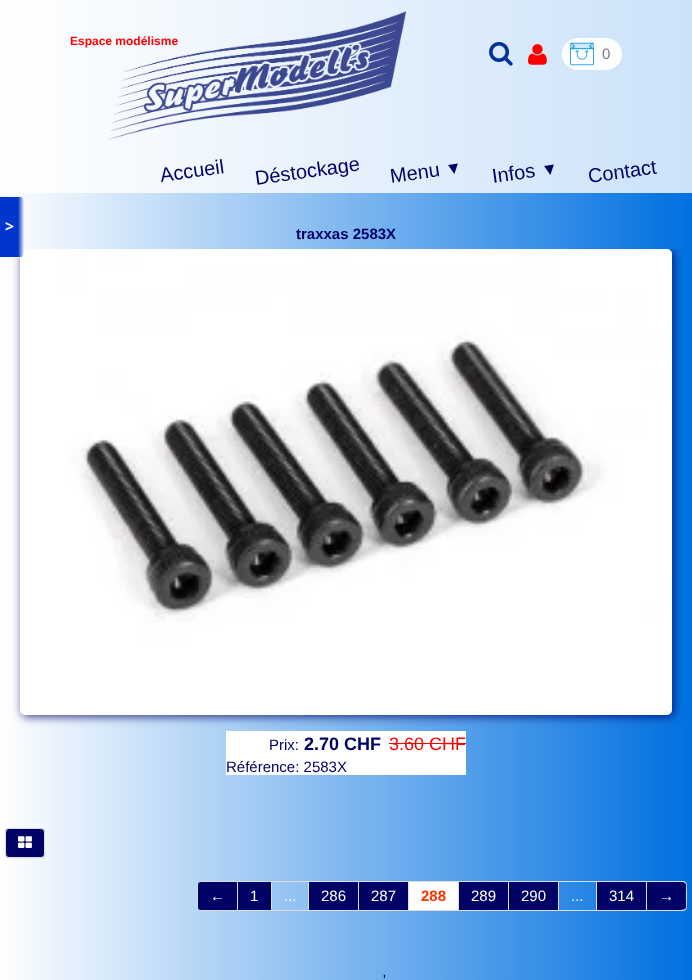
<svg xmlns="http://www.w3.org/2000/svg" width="692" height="980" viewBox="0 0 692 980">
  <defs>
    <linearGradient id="g1" gradientUnits="userSpaceOnUse" x1="0" y1="560" x2="692" y2="560"><stop offset="0" stop-color="#ffffff"/><stop offset="1" stop-color="#0070e0"/></linearGradient>
    <clipPath id="clip1"><rect x="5" y="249" width="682" height="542"/></clipPath>
    <filter id="blur1" x="-50%" y="-200%" width="200%" height="500%"><feGaussianBlur stdDeviation="5"/></filter>
    <linearGradient id="g2" gradientUnits="userSpaceOnUse" x1="0" y1="227" x2="24" y2="227"><stop offset="0.75" stop-color="#0036cc"/><stop offset="1" stop-color="#f1f1f1"/></linearGradient>
    <filter id="blur2" x="-50%" y="-200%" width="200%" height="500%"><feGaussianBlur stdDeviation="1"/></filter>
  </defs>
  <rect width="100%" height="100%" fill="#ffffff"/>
  <rect x="7" y="0" width="685" height="980" fill="url(#g1)"/>
  <rect x="10" y="0" width="682" height="193" fill="#ffffff" fill-opacity="0.8"/>
  <image x="108" y="11" width="298" height="129" href="img1.png"/>
  <text x="70" y="45" font-family="Liberation Sans" font-size="12" font-weight="bold" fill="#ff0000">Espace modélisme</text>
  <image x="489" y="42" width="24" height="24" href="img2.png"/>
  <image x="528" y="44" width="19" height="21" href="img3.png"/>
  <rect x="562" y="38" width="60" height="32" rx="16" fill="#ffffff"/>
  <image x="570" y="42" width="24" height="24" href="img4.png"/>
  <text x="602" y="59" font-family="Liberation Sans" font-size="15" fill="#777777">0</text>
  <text x="161" y="182" transform="rotate(-8 161 182)" font-family="Liberation Sans" font-size="20" fill="#000266">Accueil</text>
  <text x="256" y="185" transform="rotate(-8 256 185)" font-family="Liberation Sans" font-size="20" fill="#000266">Déstockage</text>
  <text x="391" y="183" transform="rotate(-8 391 183)" font-family="Liberation Sans" font-size="20" fill="#000266">Menu</text>
  <text x="446" y="175" transform="rotate(-8 446 175)" font-family="Liberation Sans" font-size="17" fill="#000266">▼</text>
  <text x="493" y="183" transform="rotate(-8 493 183)" font-family="Liberation Sans" font-size="20" fill="#000266">Infos</text>
  <text x="542" y="176" transform="rotate(-8 542 176)" font-family="Liberation Sans" font-size="17" fill="#000266">▼</text>
  <text x="589" y="183" transform="rotate(-8 589 183)" font-family="Liberation Sans" font-size="20" fill="#000266">Contact</text>
  <rect x="226" y="731" width="240" height="27" fill="#ffffff"/>
  <g clip-path="url(#clip1)">
    <rect x="22" y="251" width="652" height="466" rx="5" fill="#000266" fill-opacity="0.75" filter="url(#blur1)"/>
  </g>
  <image x="20" y="249" width="652" height="466" href="img5.png"/>
  <path d="M0 196H18C21.5 196 24 198.5 24 202V252C24 255.5 21.5 258 18 258H0Z" fill="url(#g2)"/>
  <rect x="0" y="196" width="21" height="1" fill="#f1f1f1"/>
  <rect x="0" y="257" width="21" height="1" fill="#f1f1f1"/>
  <text x="5" y="232" font-family="Noto Sans" font-size="16" font-weight="bold" fill="#f1f1f1">&gt;</text>
  <text x="296" y="239" font-family="Liberation Sans" font-size="15" font-weight="bold" fill="#000266">traxxas 2583X</text>
  <text x="269" y="750" font-family="Liberation Sans" font-size="15" fill="#000266">Prix:</text>
  <text x="304" y="750" font-family="Liberation Sans" font-size="18" font-weight="bold" fill="#000266">2.70 CHF</text>
  <text x="389" y="750" font-family="Liberation Sans" font-size="18" fill="#ff0000">3.60 CHF</text>
  <rect x="389" y="743" width="77" height="1" fill="#ff0000"/>
  <rect x="226" y="758" width="240" height="17" fill="#ffffff"/>
  <text x="226" y="772" font-family="Liberation Sans" font-size="15" fill="#000266">Référence: 2583X</text>
  <rect x="5" y="829" width="40" height="30" rx="4" fill="#000000" fill-opacity="0.05" filter="url(#blur2)"/>
  <rect x="5.5" y="828.5" width="39" height="29" rx="3.5" fill="#000266" stroke="#dddddd"/>
  <image x="18" y="836" width="14" height="12" href="img6.png"/>
  <path d="M201 881.5H237.5V910.5H201C199 910.5 197.5 909 197.5 907V885C197.5 883 199 881.5 201 881.5Z" fill="#000266" stroke="#dddddd"/>
  <text x="210" y="901" font-family="Liberation Sans" font-size="15" fill="#ffffff">←</text>
  <rect x="238" y="882" width="33" height="28" fill="#000266"/>
  <rect x="238" y="881" width="409" height="1" fill="#dddddd"/>
  <rect x="271" y="881" width="1" height="30" fill="#dddddd"/>
  <rect x="238" y="910" width="34" height="1" fill="#dddddd"/>
  <text x="250" y="901" font-family="Liberation Sans" font-size="15" fill="#ffffff">1</text>
  <rect x="308" y="881" width="1" height="30" fill="#dddddd"/>
  <rect x="272" y="910" width="37" height="1" fill="#dddddd"/>
  <text x="284" y="901" font-family="Liberation Sans" font-size="15" fill="#ffffff">...</text>
  <rect x="309" y="882" width="49" height="28" fill="#000266"/>
  <rect x="358" y="881" width="1" height="30" fill="#dddddd"/>
  <rect x="309" y="910" width="50" height="1" fill="#dddddd"/>
  <text x="321" y="901" font-family="Liberation Sans" font-size="15" fill="#ffffff">286</text>
  <rect x="359" y="882" width="49" height="28" fill="#000266"/>
  <rect x="408" y="881" width="1" height="30" fill="#dddddd"/>
  <rect x="359" y="910" width="50" height="1" fill="#dddddd"/>
  <text x="371" y="901" font-family="Liberation Sans" font-size="15" fill="#ffffff">287</text>
  <rect x="409" y="882" width="49" height="28" fill="#ffffff"/>
  <rect x="458" y="881" width="1" height="30" fill="#dddddd"/>
  <rect x="409" y="910" width="50" height="1" fill="#dddddd"/>
  <text x="421" y="901" font-family="Liberation Sans" font-size="15" font-weight="bold" fill="#ff3300">288</text>
  <rect x="459" y="882" width="49" height="28" fill="#000266"/>
  <rect x="508" y="881" width="1" height="30" fill="#dddddd"/>
  <rect x="459" y="910" width="50" height="1" fill="#dddddd"/>
  <text x="471" y="901" font-family="Liberation Sans" font-size="15" fill="#ffffff">289</text>
  <rect x="509" y="882" width="49" height="28" fill="#000266"/>
  <rect x="558" y="881" width="1" height="30" fill="#dddddd"/>
  <rect x="509" y="910" width="50" height="1" fill="#dddddd"/>
  <text x="521" y="901" font-family="Liberation Sans" font-size="15" fill="#ffffff">290</text>
  <rect x="596" y="881" width="1" height="30" fill="#dddddd"/>
  <rect x="559" y="910" width="38" height="1" fill="#dddddd"/>
  <text x="571" y="901" font-family="Liberation Sans" font-size="15" fill="#ffffff">...</text>
  <rect x="597" y="882" width="49" height="28" fill="#000266"/>
  <rect x="646" y="881" width="1" height="30" fill="#dddddd"/>
  <rect x="597" y="910" width="50" height="1" fill="#dddddd"/>
  <text x="609" y="901" font-family="Liberation Sans" font-size="15" fill="#ffffff">314</text>
  <path d="M647 882H683C684.5 882 686 883.5 686 885V907C686 908.5 684.5 910 683 910H647Z" fill="#000266"/>
  <path d="M647 881H683C685 881 687 883 687 885V907C687 909 685 911 683 911H647ZM647 882H677C689 882 686 883 686 896C686 909 689 910 677 910H647Z" fill="#dddddd" fill-rule="evenodd"/>
  <text x="659" y="901" font-family="Liberation Sans" font-size="15" fill="#ffffff">→</text>
  <text x="383" y="985" font-family="Liberation Sans" font-size="15" fill="#000266">'</text>
</svg>
